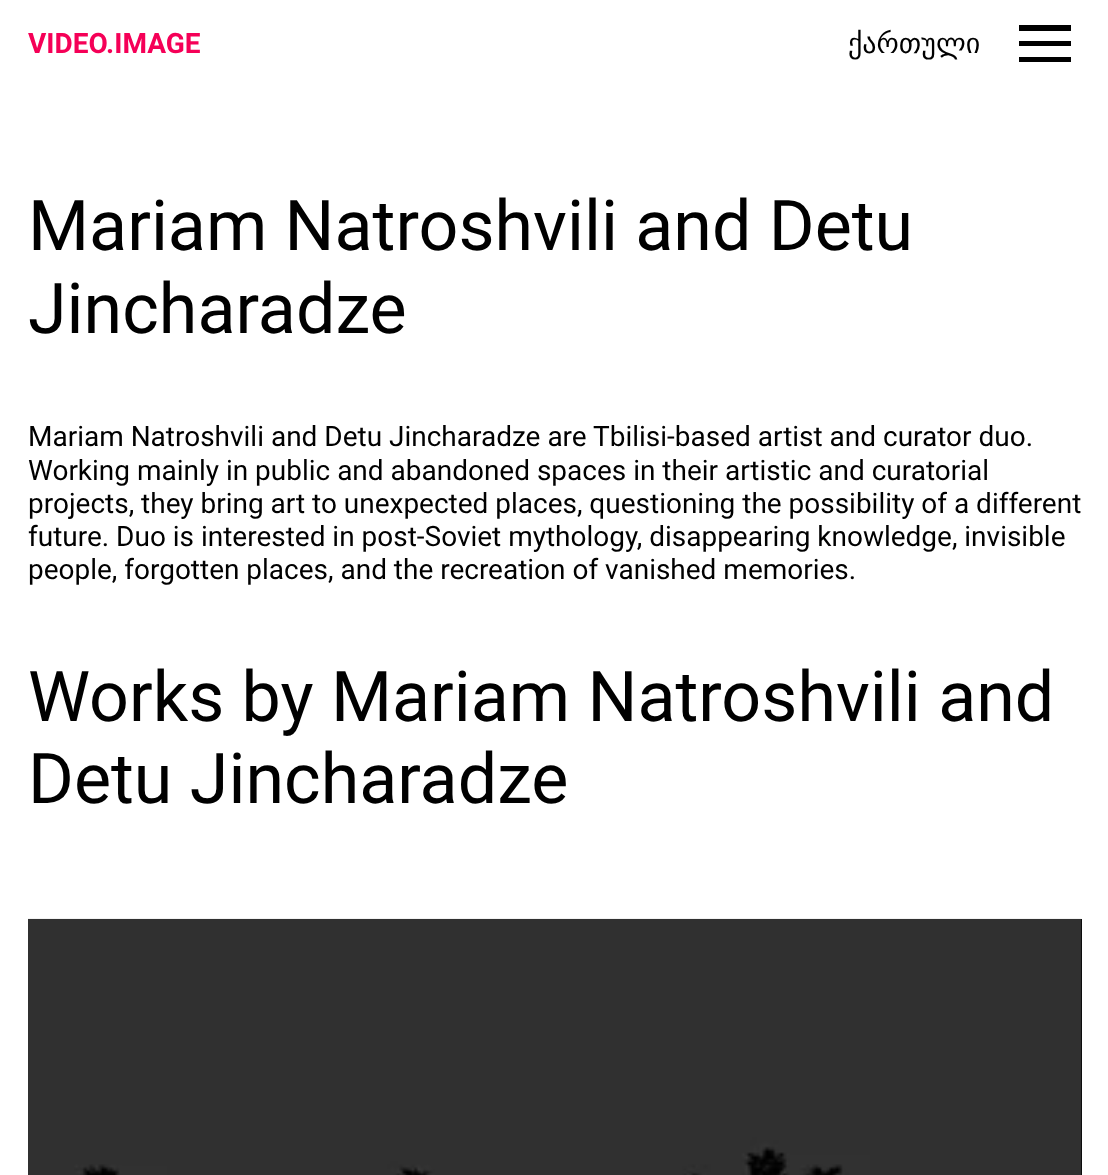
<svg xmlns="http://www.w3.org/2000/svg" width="1108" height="1175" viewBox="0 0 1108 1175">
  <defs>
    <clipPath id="clip1"><rect x="1019" y="18" width="52" height="52"/></clipPath>
  </defs>
  <rect width="100%" height="100%" fill="#ffffff"/>
  <text x="28" y="53" font-family="Roboto" font-size="28" font-weight="bold" fill="#f50057">VIDEO.IMAGE</text>
  <text x="848" y="53" font-family="DejaVu Sans" font-size="28" fill="#000000">ქართული</text>
  <g clip-path="url(#clip1)">
    <path d="M1018 25V31H1071V25ZM1018 41V46H1071V41ZM1018 57V62H1071V57Z" fill="#000000"/>
  </g>
  <text x="28" y="250" font-family="Roboto" font-size="70" fill="#000000">Mariam Natroshvili and Detu</text>
  <text x="28" y="333" font-family="Roboto" font-size="70" fill="#000000">Jincharadze</text>
  <text x="28" y="446" font-family="Roboto" font-size="28" fill="#000000">Mariam Natroshvili and Detu Jincharadze are Tbilisi-based artist and curator duo.</text>
  <text x="28" y="480" font-family="Roboto" font-size="28" fill="#000000">Working mainly in public and abandoned spaces in their artistic and curatorial</text>
  <text x="28" y="513" font-family="Roboto" font-size="28" fill="#000000">projects, they bring art to unexpected places, questioning the possibility of a different</text>
  <text x="28" y="546" font-family="Roboto" font-size="28" fill="#000000">future. Duo is interested in post-Soviet mythology, disappearing knowledge, invisible</text>
  <text x="28" y="579" font-family="Roboto" font-size="28" fill="#000000">people, forgotten places, and the recreation of vanished memories.</text>
  <text x="28" y="721" font-family="Roboto" font-size="70" fill="#000000">Works by Mariam Natroshvili and</text>
  <text x="28" y="803" font-family="Roboto" font-size="70" fill="#000000">Detu Jincharadze</text>
  <rect x="1081" y="919" width="1" height="256" fill="#000000"/>
  <image x="28" y="918" width="1054" height="257" href="img1.png"/>
</svg>
